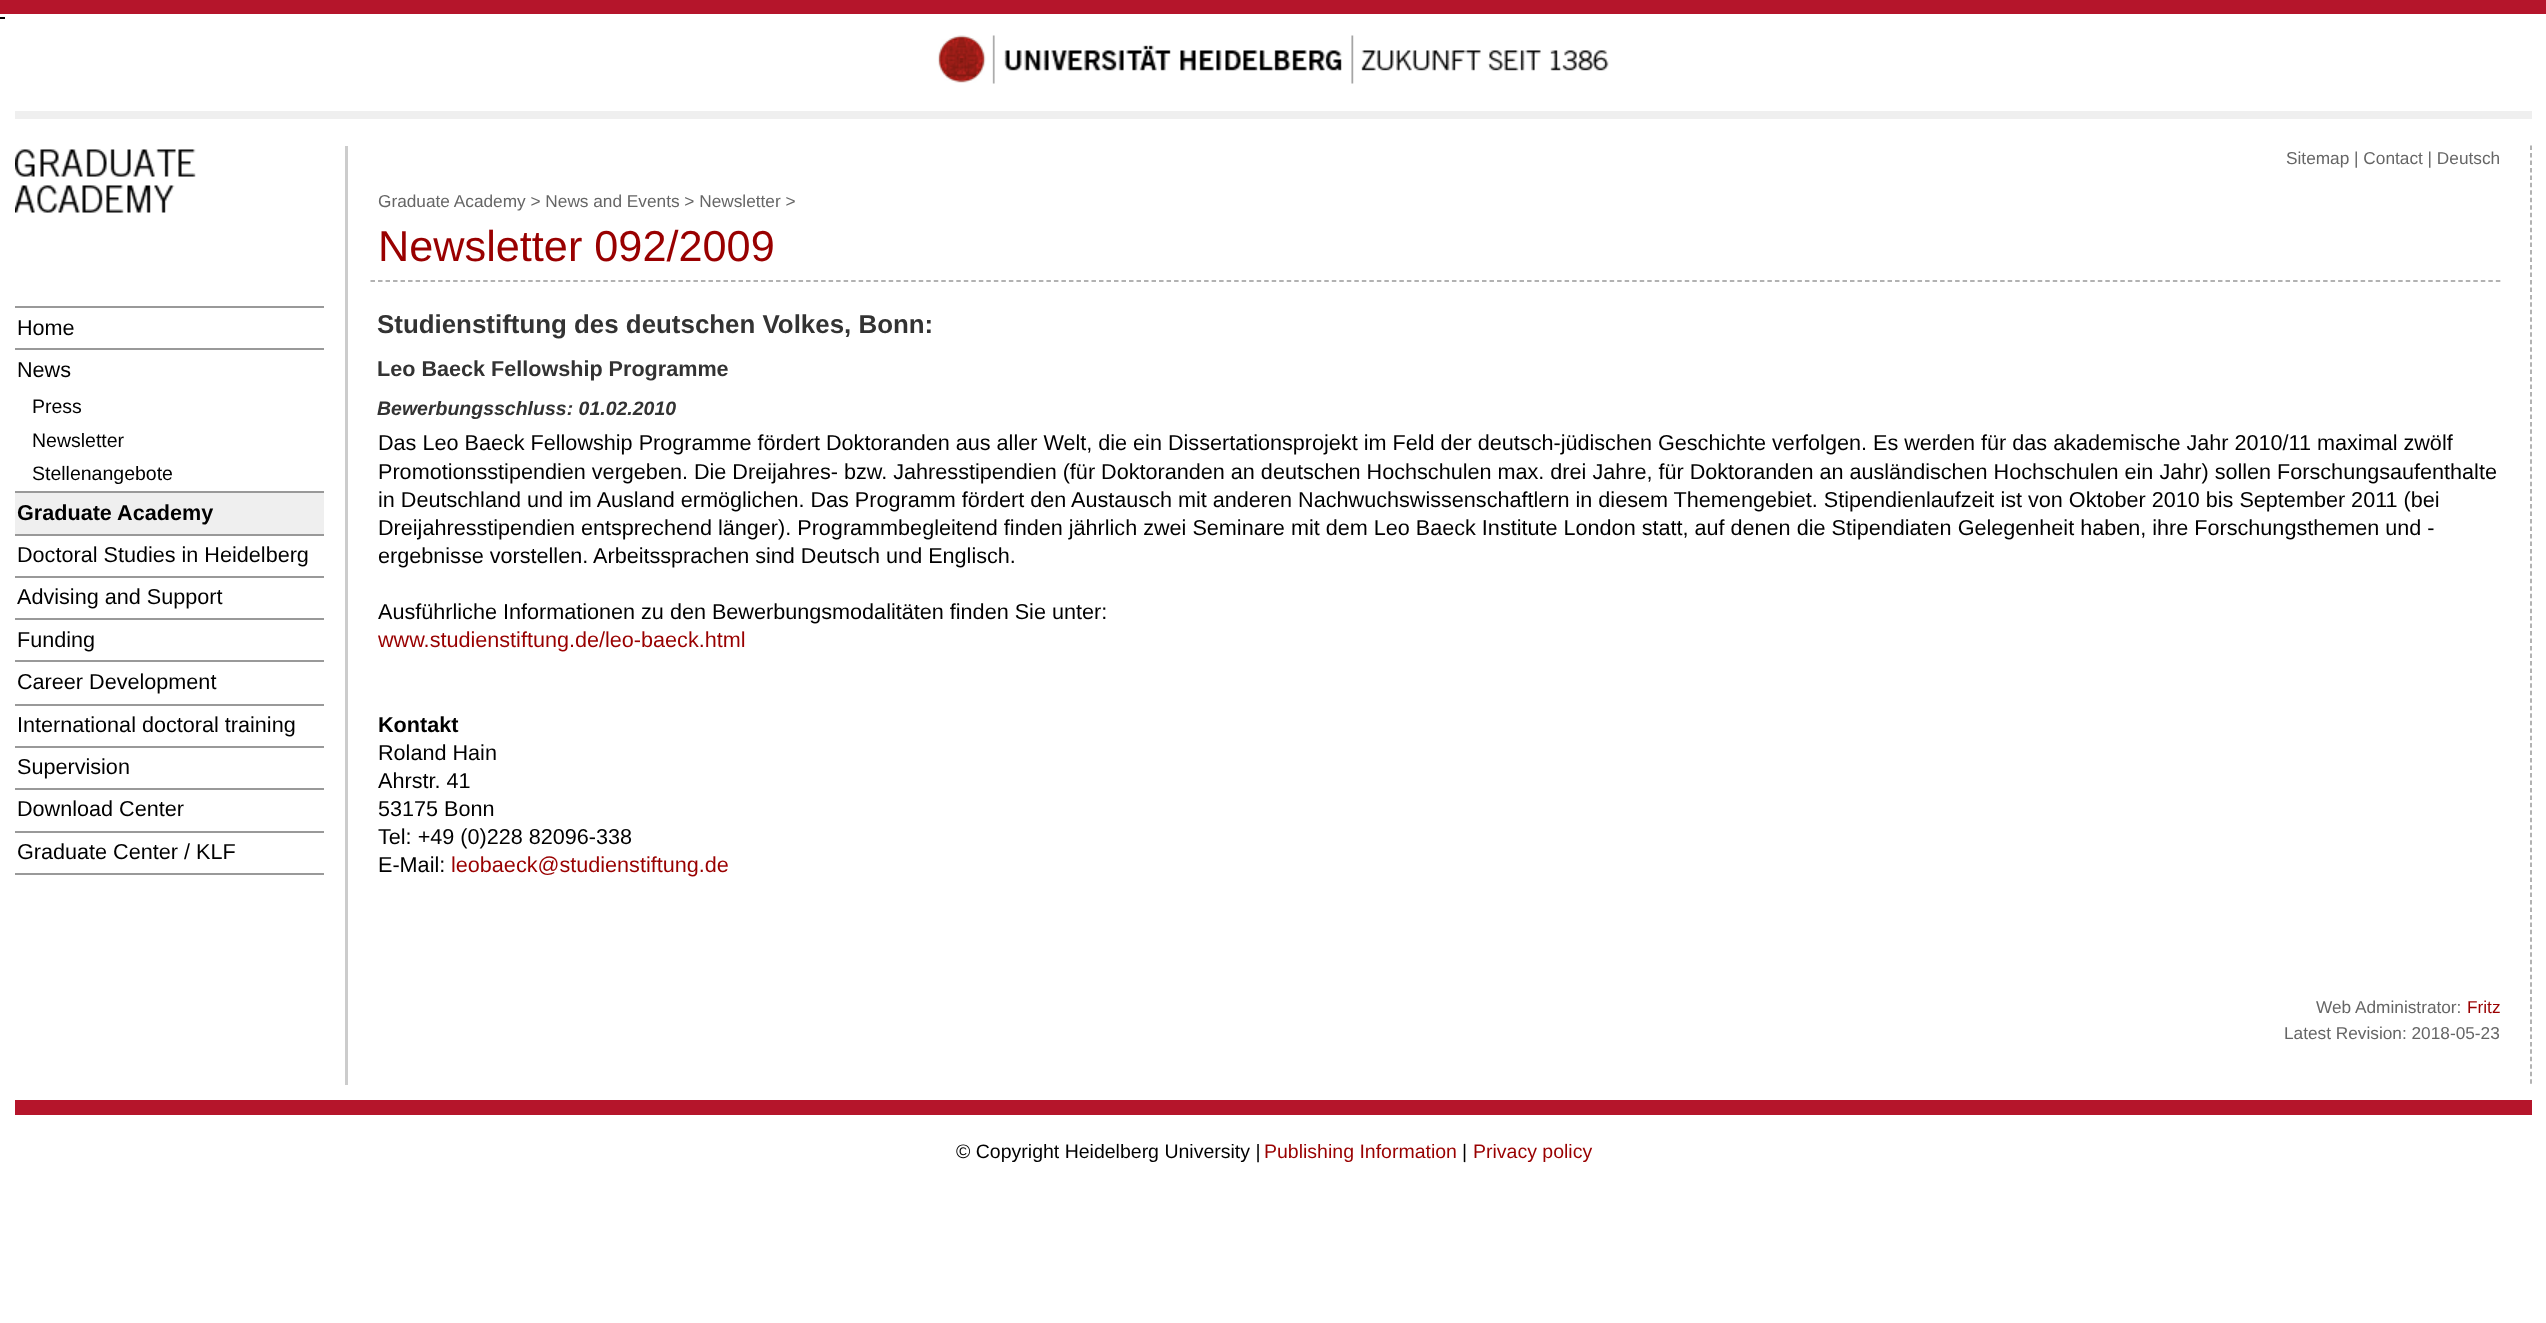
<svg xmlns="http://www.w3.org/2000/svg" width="2546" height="1323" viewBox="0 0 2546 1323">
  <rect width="100%" height="100%" fill="#ffffff"/>
  <rect x="0" y="0" width="2546" height="14" fill="#b5152b"/>
  <rect x="0" y="17" width="5" height="2" fill="#000000"/>
  <image x="937" y="35" width="672" height="49" href="img1.png"/>
  <rect x="15" y="111" width="2517" height="8" fill="#efefef"/>
  <image x="15" y="149" width="181" height="64" href="img2.png"/>
  <rect x="15" y="306" width="309" height="2" fill="#999999"/>
  <text x="17" y="335" font-family="Liberation Sans" font-size="21.62" fill="#000000">Home</text>
  <rect x="15" y="348" width="309" height="2" fill="#999999"/>
  <text x="17" y="377" font-family="Liberation Sans" font-size="21.62" fill="#000000">News</text>
  <text x="32" y="413" font-family="Liberation Sans" font-size="19.5" fill="#000000">Press</text>
  <text x="32" y="447" font-family="Liberation Sans" font-size="19.5" fill="#000000">Newsletter</text>
  <text x="32" y="480" font-family="Liberation Sans" font-size="19.5" fill="#000000">Stellenangebote</text>
  <rect x="15" y="493" width="309" height="41" fill="#efefef"/>
  <rect x="15" y="491" width="309" height="2" fill="#999999"/>
  <text x="17" y="520" font-family="Liberation Sans" font-size="21.62" font-weight="bold" fill="#000000">Graduate Academy</text>
  <rect x="15" y="534" width="309" height="2" fill="#999999"/>
  <text x="17" y="562" font-family="Liberation Sans" font-size="21.62" fill="#000000">Doctoral Studies in Heidelberg</text>
  <rect x="15" y="576" width="309" height="2" fill="#999999"/>
  <text x="17" y="604" font-family="Liberation Sans" font-size="21.62" fill="#000000">Advising and Support</text>
  <rect x="15" y="618" width="309" height="2" fill="#999999"/>
  <text x="17" y="647" font-family="Liberation Sans" font-size="21.62" fill="#000000">Funding</text>
  <rect x="15" y="660" width="309" height="2" fill="#999999"/>
  <text x="17" y="689" font-family="Liberation Sans" font-size="21.62" fill="#000000">Career Development</text>
  <rect x="15" y="704" width="309" height="2" fill="#999999"/>
  <text x="17" y="732" font-family="Liberation Sans" font-size="21.62" fill="#000000">International doctoral training</text>
  <rect x="15" y="746" width="309" height="2" fill="#999999"/>
  <text x="17" y="774" font-family="Liberation Sans" font-size="21.62" fill="#000000">Supervision</text>
  <rect x="15" y="788" width="309" height="2" fill="#999999"/>
  <text x="17" y="816" font-family="Liberation Sans" font-size="21.62" fill="#000000">Download Center</text>
  <rect x="15" y="831" width="309" height="2" fill="#999999"/>
  <text x="17" y="859" font-family="Liberation Sans" font-size="21.62" fill="#000000">Graduate Center / KLF</text>
  <rect x="15" y="873" width="309" height="2" fill="#999999"/>
  <path d="M2531 145.5V1084.5" fill="none" stroke="#999999" stroke-width="1.5" stroke-dasharray="4.5 2.97"/>
  <rect x="345" y="146" width="3" height="939" fill="#cccccc"/>
  <text x="2286" y="164" font-family="Liberation Sans" font-size="17.25" fill="#666666">Sitemap | Contact | Deutsch</text>
  <text x="378" y="207" font-family="Liberation Sans" font-size="17.25" fill="#666666">Graduate Academy &gt; News and Events &gt; Newsletter &gt;</text>
  <path d="M370.5 281H2500.5" fill="none" stroke="#999999" stroke-width="1.5" stroke-dasharray="4.5 3.01"/>
  <text x="378" y="261" font-family="Liberation Sans" font-size="43.25" fill="#990000">Newsletter 092/2009</text>
  <text x="377" y="333" font-family="Liberation Sans" font-size="25.9" font-weight="bold" fill="#333333">Studienstiftung des deutschen Volkes, Bonn:</text>
  <text x="377" y="376" font-family="Liberation Sans" font-size="21.6" font-weight="bold" fill="#333333">Leo Baeck Fellowship Programme</text>
  <text x="377" y="415" font-family="Liberation Sans" font-size="19.5" font-weight="bold" font-style="italic" fill="#333333">Bewerbungsschluss: 01.02.2010</text>
  <text x="378" y="450" font-family="Liberation Sans" font-size="21.62" fill="#000000">Das Leo Baeck Fellowship Programme fördert Doktoranden aus aller Welt, die ein Dissertationsprojekt im Feld der deutsch-jüdischen Geschichte verfolgen. Es werden für das akademische Jahr 2010/11 maximal zwölf</text>
  <text x="378" y="479" font-family="Liberation Sans" font-size="21.62" fill="#000000">Promotionsstipendien vergeben. Die Dreijahres- bzw. Jahresstipendien (für Doktoranden an deutschen Hochschulen max. drei Jahre, für Doktoranden an ausländischen Hochschulen ein Jahr) sollen Forschungsaufenthalte</text>
  <text x="378" y="507" font-family="Liberation Sans" font-size="21.62" fill="#000000">in Deutschland und im Ausland ermöglichen. Das Programm fördert den Austausch mit anderen Nachwuchswissenschaftlern in diesem Themengebiet. Stipendienlaufzeit ist von Oktober 2010 bis September 2011 (bei</text>
  <text x="378" y="535" font-family="Liberation Sans" font-size="21.62" fill="#000000">Dreijahresstipendien entsprechend länger). Programmbegleitend finden jährlich zwei Seminare mit dem Leo Baeck Institute London statt, auf denen die Stipendiaten Gelegenheit haben, ihre Forschungsthemen und -</text>
  <text x="378" y="563" font-family="Liberation Sans" font-size="21.62" fill="#000000">ergebnisse vorstellen. Arbeitssprachen sind Deutsch und Englisch.</text>
  <text x="378" y="619" font-family="Liberation Sans" font-size="21.62" fill="#000000">Ausführliche Informationen zu den Bewerbungsmodalitäten finden Sie unter:</text>
  <text x="378" y="647" font-family="Liberation Sans" font-size="21.62" fill="#990000">www.studienstiftung.de/leo-baeck.html</text>
  <text x="378" y="732" font-family="Liberation Sans" font-size="21.62" font-weight="bold" fill="#000000">Kontakt</text>
  <text x="378" y="760" font-family="Liberation Sans" font-size="21.62" fill="#000000">Roland Hain</text>
  <text x="378" y="788" font-family="Liberation Sans" font-size="21.62" fill="#000000">Ahrstr. 41</text>
  <text x="378" y="816" font-family="Liberation Sans" font-size="21.62" fill="#000000">53175 Bonn</text>
  <text x="378" y="844" font-family="Liberation Sans" font-size="21.62" fill="#000000">Tel: +49 (0)228 82096-338</text>
  <text x="378" y="872" font-family="Liberation Sans" font-size="21.62" fill="#000000">E-Mail:</text>
  <text x="451" y="872" font-family="Liberation Sans" font-size="21.62" fill="#990000">leobaeck@studienstiftung.de</text>
  <text x="2316" y="1013" font-family="Liberation Sans" font-size="17.25" fill="#666666">Web Administrator:</text>
  <text x="2467" y="1013" font-family="Liberation Sans" font-size="17.25" fill="#990000">Fritz</text>
  <text x="2284" y="1039" font-family="Liberation Sans" font-size="17.25" fill="#666666">Latest Revision: 2018-05-23</text>
  <rect x="15" y="1100" width="2517" height="15" fill="#b5152b"/>
  <text x="956" y="1158" font-family="Liberation Sans" font-size="19.5" fill="#000000">© Copyright Heidelberg University |</text>
  <text x="1264" y="1158" font-family="Liberation Sans" font-size="19.5" fill="#990000">Publishing Information</text>
  <text x="1462" y="1158" font-family="Liberation Sans" font-size="19.5" fill="#000000">|</text>
  <text x="1473" y="1158" font-family="Liberation Sans" font-size="19.5" fill="#990000">Privacy policy</text>
</svg>
